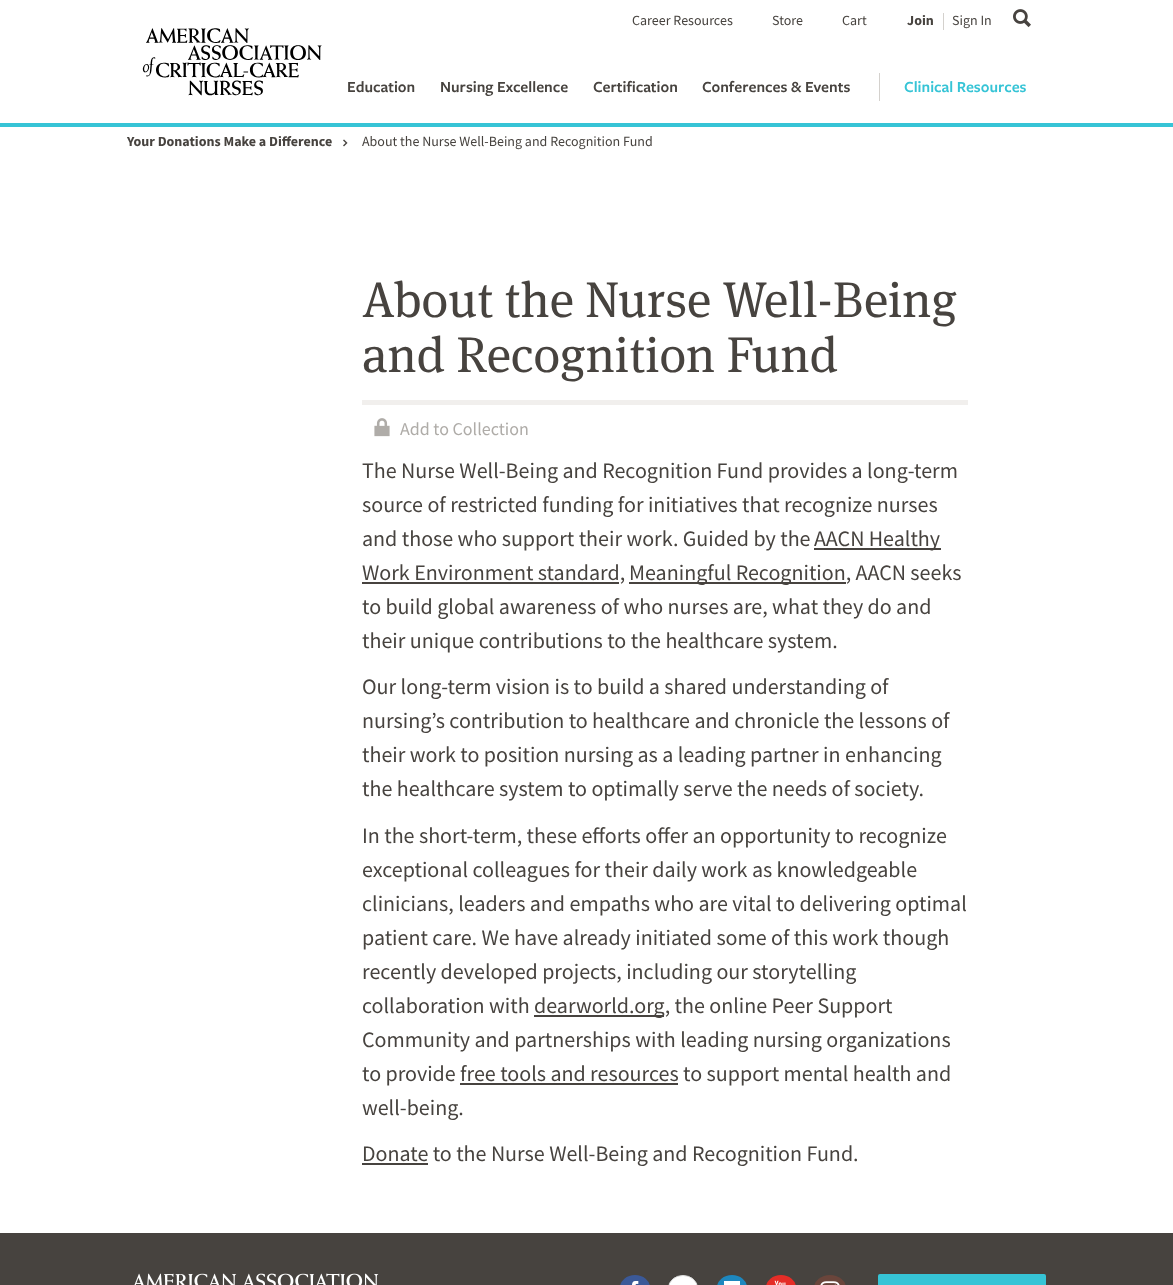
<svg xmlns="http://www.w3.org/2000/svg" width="1173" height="1285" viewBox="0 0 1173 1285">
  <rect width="100%" height="100%" fill="#ffffff"/>
  <text x="632" y="25" font-family="Source Sans Pro" font-size="14" fill="#47433f">Career Resources</text>
  <text x="772" y="25" font-family="Source Sans Pro" font-size="14" fill="#47433f">Store</text>
  <text x="842" y="25" font-family="Source Sans Pro" font-size="14" fill="#47433f">Cart</text>
  <text x="907" y="25" font-family="Source Sans Pro" font-size="14" font-weight="bold" fill="#47433f">Join</text>
  <rect x="943" y="13" width="1" height="17" fill="#d4d1cd"/>
  <text x="952" y="25" font-family="Source Sans Pro" font-size="14" fill="#47433f">Sign In</text>
  <image x="1013" y="9" width="18" height="19" href="img1.png"/>
  <image x="142" y="28" width="180" height="68" href="img2.png"/>
  <text x="347" y="92" font-family="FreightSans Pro" font-size="16" font-weight="600" fill="#47433f">Education</text>
  <text x="440" y="92" font-family="FreightSans Pro" font-size="16" font-weight="600" fill="#47433f">Nursing Excellence</text>
  <text x="593" y="92" font-family="FreightSans Pro" font-size="16" font-weight="600" fill="#47433f">Certification</text>
  <text x="702" y="92" font-family="FreightSans Pro" font-size="16" font-weight="600" fill="#47433f">Conferences &amp; Events</text>
  <rect x="879" y="73" width="1" height="28" fill="#d4d1cd"/>
  <text x="904" y="92" font-family="FreightSans Pro" font-size="16" font-weight="600" fill="#36c4d6">Clinical Resources</text>
  <rect x="0" y="123" width="1173" height="4" fill="#36c4d6"/>
  <text x="127" y="146" font-family="Source Sans Pro" font-size="14" font-weight="bold" fill="#47433f">Your Donations Make a Difference</text>
  <image x="343" y="139" width="5" height="8" href="img3.png"/>
  <text x="362" y="146" font-family="Source Sans Pro" font-size="14" fill="#47433f">About the Nurse Well-Being and Recognition Fund</text>
  <rect x="362" y="400" width="606" height="5" fill="#f1efed"/>
  <text x="362" y="317" font-family="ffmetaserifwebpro" font-size="50" fill="#47433f">About the Nurse Well-Being</text>
  <text x="362" y="372" font-family="ffmetaserifwebpro" font-size="50" fill="#47433f">and Recognition Fund</text>
  <image x="374" y="418" width="16" height="19" href="img4.png"/>
  <text x="400" y="435" font-family="Source Sans Pro" font-size="18" fill="#afaca8">Add to Collection</text>
  <text x="362" y="478" font-family="Source Sans Pro" font-size="22" fill="#47433f">The Nurse Well-Being and Recognition Fund provides a long-term</text>
  <text x="362" y="512" font-family="Source Sans Pro" font-size="22" fill="#47433f">source of restricted funding for initiatives that recognize nurses</text>
  <text x="362" y="546" font-family="Source Sans Pro" font-size="22" fill="#47433f">and those who support their work. Guided by the</text>
  <rect x="814" y="548" width="127" height="2" fill="#47433f"/>
  <text x="814" y="546" font-family="Source Sans Pro" font-size="22" fill="#47433f">AACN Healthy</text>
  <rect x="362" y="582" width="257" height="2" fill="#47433f"/>
  <text x="362" y="580" font-family="Source Sans Pro" font-size="22" fill="#47433f">Work Environment standard,</text>
  <rect x="629" y="582" width="217" height="2" fill="#47433f"/>
  <text x="629" y="580" font-family="Source Sans Pro" font-size="22" fill="#47433f">Meaningful Recognition, AACN seeks</text>
  <text x="362" y="614" font-family="Source Sans Pro" font-size="22" fill="#47433f">to build global awareness of who nurses are, what they do and</text>
  <text x="362" y="648" font-family="Source Sans Pro" font-size="22" fill="#47433f">their unique contributions to the healthcare system.</text>
  <text x="362" y="694" font-family="Source Sans Pro" font-size="22" fill="#47433f">Our long-term vision is to build a shared understanding of</text>
  <text x="362" y="728" font-family="Source Sans Pro" font-size="22" fill="#47433f">nursing’s contribution to healthcare and chronicle the lessons of</text>
  <text x="362" y="762" font-family="Source Sans Pro" font-size="22" fill="#47433f">their work to position nursing as a leading partner in enhancing</text>
  <text x="362" y="796" font-family="Source Sans Pro" font-size="22" fill="#47433f">the healthcare system to optimally serve the needs of society.</text>
  <text x="362" y="843" font-family="Source Sans Pro" font-size="22" fill="#47433f">In the short-term, these efforts offer an opportunity to recognize</text>
  <text x="362" y="877" font-family="Source Sans Pro" font-size="22" fill="#47433f">exceptional colleagues for their daily work as knowledgeable</text>
  <text x="362" y="911" font-family="Source Sans Pro" font-size="22" fill="#47433f">clinicians, leaders and empaths who are vital to delivering optimal</text>
  <text x="362" y="945" font-family="Source Sans Pro" font-size="22" fill="#47433f">patient care. We have already initiated some of this work though</text>
  <text x="362" y="979" font-family="Source Sans Pro" font-size="22" fill="#47433f">recently developed projects, including our storytelling</text>
  <text x="362" y="1013" font-family="Source Sans Pro" font-size="22" fill="#47433f">collaboration with</text>
  <rect x="534" y="1015" width="130" height="2" fill="#47433f"/>
  <text x="534" y="1013" font-family="Source Sans Pro" font-size="22" fill="#47433f">dearworld.org, the online Peer Support</text>
  <text x="362" y="1047" font-family="Source Sans Pro" font-size="22" fill="#47433f">Community and partnerships with leading nursing organizations</text>
  <text x="362" y="1081" font-family="Source Sans Pro" font-size="22" fill="#47433f">to provide free tools and resources to support mental health and</text>
  <rect x="460" y="1083" width="218" height="2" fill="#47433f"/>
  <text x="362" y="1115" font-family="Source Sans Pro" font-size="22" fill="#47433f">well-being.</text>
  <rect x="362" y="1163" width="66" height="2" fill="#47433f"/>
  <text x="362" y="1161" font-family="Source Sans Pro" font-size="22" fill="#47433f">Donate to the Nurse Well-Being and Recognition Fund.</text>
  <rect x="0" y="1233" width="1173" height="52" fill="#47433f"/>
  <image x="134" y="1273" width="245" height="12" href="img5.png"/>
  <rect x="620" y="1275" width="30" height="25" rx="15" fill="#3b5998"/>
  <image x="632" y="1281" width="7" height="4" href="img6.png"/>
  <rect x="668.5" y="1275.5" width="29" height="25" rx="14.5" fill="#ffffff" stroke="#dedede"/>
  <rect x="717" y="1275" width="30" height="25" rx="15" fill="#1d87be"/>
  <rect x="724" y="1281" width="16" height="4" fill="#ffffff"/>
  <rect x="766" y="1275" width="30" height="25" rx="15" fill="#e52d27"/>
  <image x="774" y="1280" width="12" height="5" href="img7.png"/>
  <rect x="814" y="1275" width="32" height="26" rx="16" fill="#6a453b"/>
  <image x="820" y="1281" width="20" height="4" href="img8.png"/>
  <rect x="878" y="1274" width="168" height="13" rx="2" fill="#36c4d6"/>
</svg>
